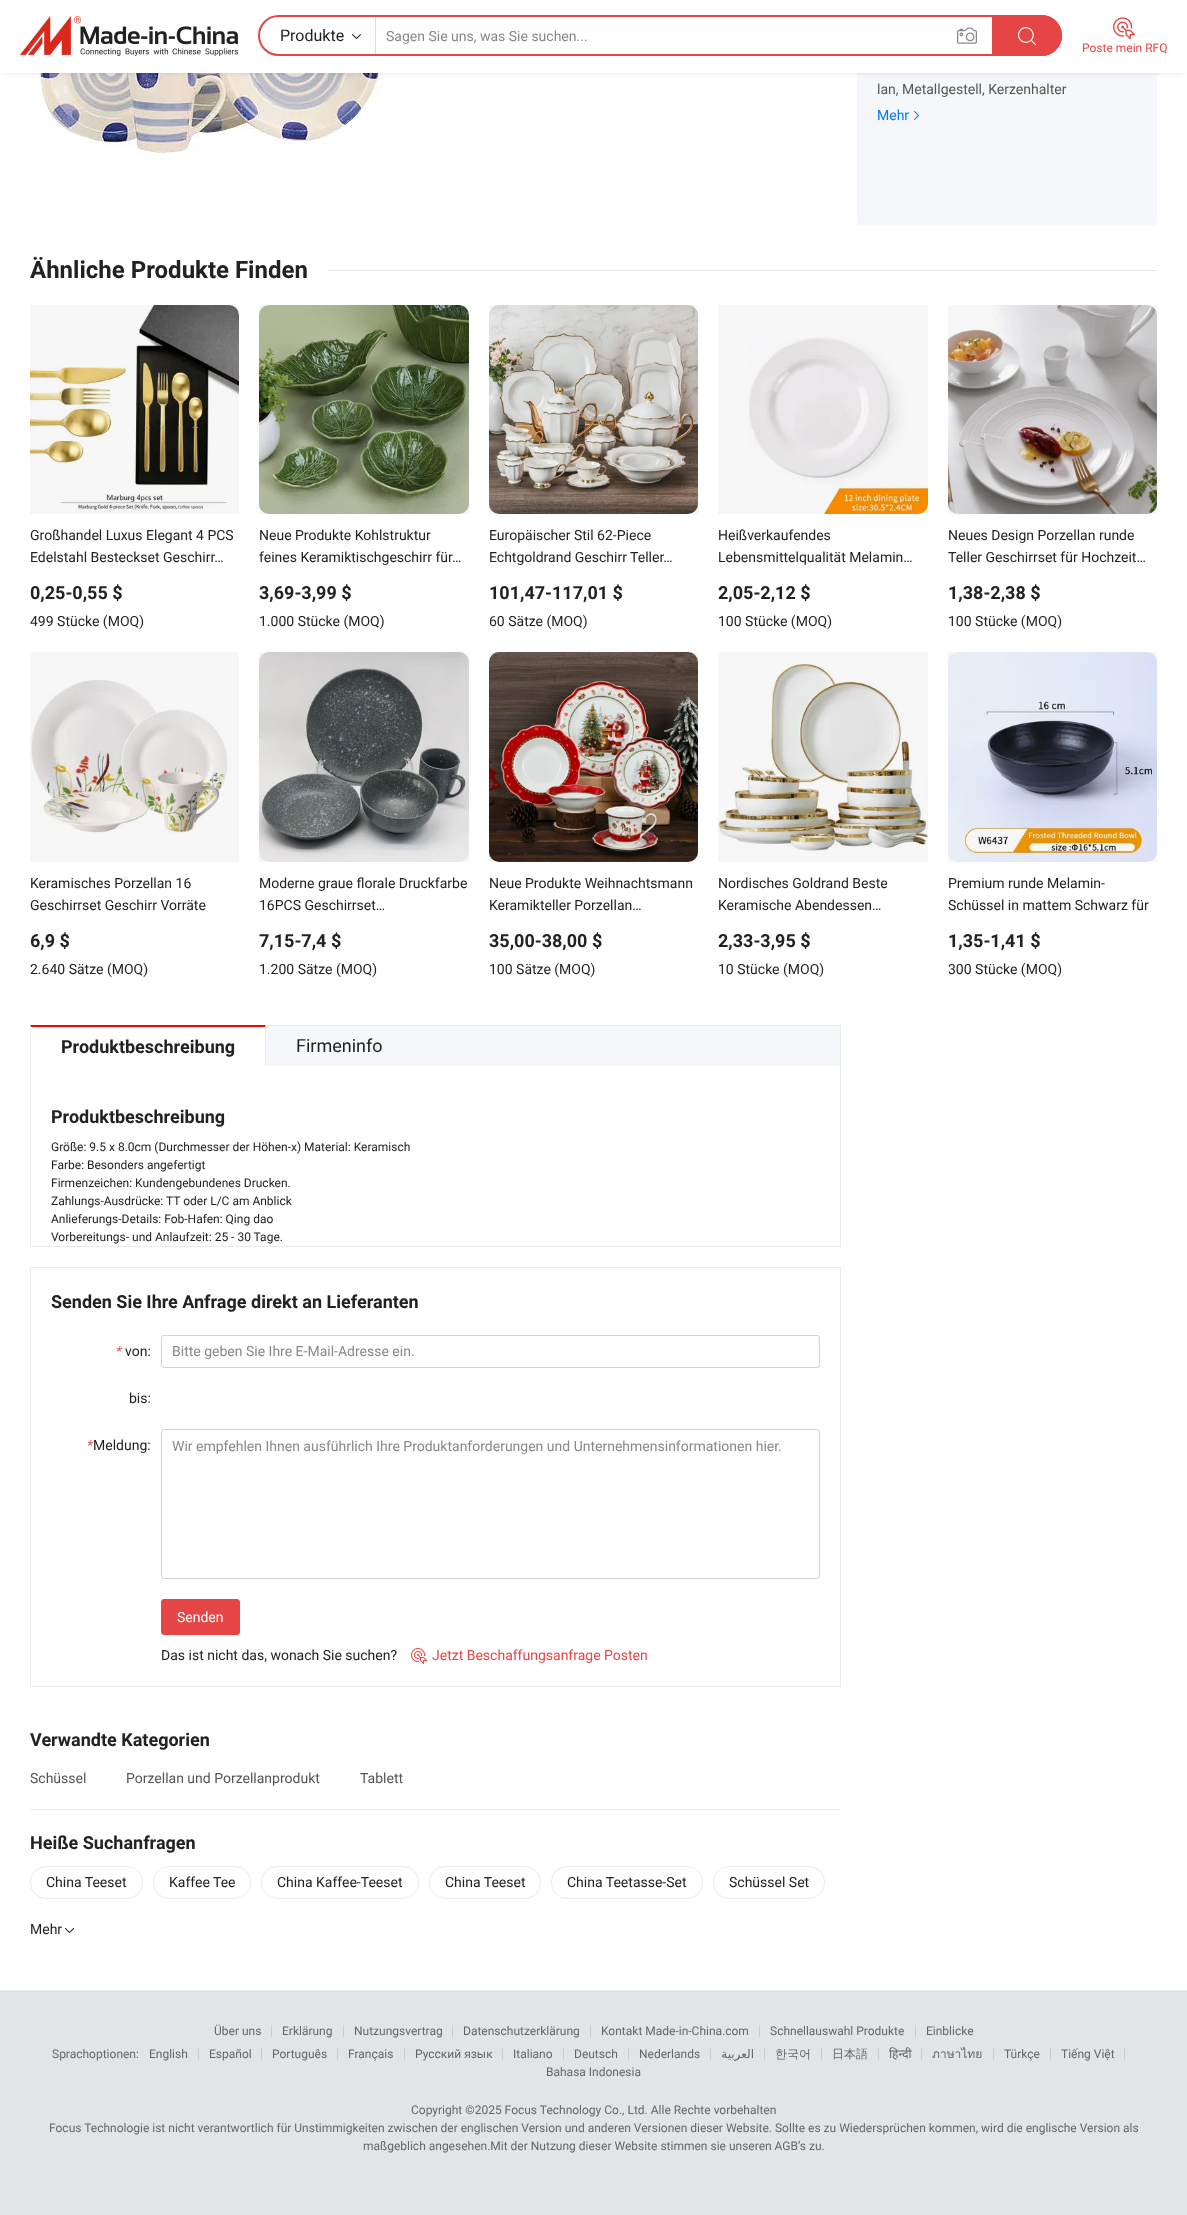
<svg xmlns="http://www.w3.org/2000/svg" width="1187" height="2215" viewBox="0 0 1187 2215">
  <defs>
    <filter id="blur1" x="-50%" y="-200%" width="200%" height="500%"><feGaussianBlur stdDeviation="2.5"/></filter>
  </defs>
  <rect width="100%" height="100%" fill="#ffffff"/>
  <image x="38" y="73" width="344" height="80" href="img6.png"/>
  <rect x="857" y="-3" width="300" height="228" rx="3" fill="#f5f7fa"/>
  <rect x="3" y="6" width="1181" height="67" fill="#000000" fill-opacity="0.12" filter="url(#blur1)"/>
  <rect x="0" y="0" width="1187" height="73" fill="#ffffff"/>
  <image x="20" y="16" width="218" height="40" href="img1.png"/>
  <rect x="259" y="16" width="802" height="39" rx="19.5" fill="none" stroke="#e64545" stroke-width="2"/>
  <rect x="375" y="17" width="1" height="37" fill="#dadada"/>
  <text x="280" y="41" font-family="Roboto" font-size="16" fill="#222222">Produkte</text>
  <image x="352" y="34" width="9" height="5" href="img2.png"/>
  <text x="386" y="41" font-family="Roboto" font-size="14" fill="#888888">Sagen Sie uns, was Sie suchen...</text>
  <image x="957" y="27" width="20" height="17" href="img3.png"/>
  <path d="M992 15H1041.5C1053 15 1062 24 1062 35.5C1062 47 1053 56 1041.5 56H992Z" fill="#e64545"/>
  <image x="1018" y="27" width="18" height="19" href="img4.png"/>
  <image x="1113" y="17" width="22" height="23" href="img5.png"/>
  <text x="1082" y="52" font-family="Roboto" font-size="12" fill="#e64545">Poste mein RFQ</text>
  <rect x="0" y="1990" width="1187" height="1" fill="#e6ecf2"/>
  <text x="877" y="94" font-family="Roboto" font-size="14" fill="#555555">lan, Metallgestell, Kerzenhalter</text>
  <text x="877" y="120" font-family="Roboto" font-size="14" fill="#007aff">Mehr</text>
  <image x="914" y="111" width="5" height="9" href="img7.png"/>
  <text x="30" y="278" font-family="Roboto" font-size="24" font-weight="bold" fill="#222222">Ähnliche Produkte Finden</text>
  <rect x="328" y="270" width="829" height="1" fill="#e6e6e6"/>
  <image x="30" y="305" width="209" height="207" href="img8.png"/>
  <rect x="30" y="305" width="209" height="209" fill="#000000" fill-opacity="0.03"/>
  <text x="30" y="540" font-family="Roboto" font-size="14" fill="#222222">Großhandel Luxus Elegant 4 PCS</text>
  <text x="30" y="562" font-family="Roboto" font-size="14" fill="#222222">Edelstahl Besteckset Geschirr…</text>
  <text x="30" y="599" font-family="Roboto" font-size="18" font-weight="bold" fill="#222222">0,25-0,55 $</text>
  <text x="30" y="626" font-family="Roboto" font-size="14" fill="#222222">499 Stücke (MOQ)</text>
  <image x="259" y="305" width="210" height="209" href="img9.png"/>
  <rect x="259" y="305" width="210" height="209" fill="#000000" fill-opacity="0.03"/>
  <text x="259" y="540" font-family="Roboto" font-size="14" fill="#222222">Neue Produkte Kohlstruktur</text>
  <text x="259" y="562" font-family="Roboto" font-size="14" fill="#222222">feines Keramiktischgeschirr für…</text>
  <text x="259" y="599" font-family="Roboto" font-size="18" font-weight="bold" fill="#222222">3,69-3,99 $</text>
  <text x="259" y="626" font-family="Roboto" font-size="14" fill="#222222">1.000 Stücke (MOQ)</text>
  <image x="489" y="305" width="209" height="209" href="img10.png"/>
  <rect x="489" y="305" width="209" height="209" fill="#000000" fill-opacity="0.03"/>
  <text x="489" y="540" font-family="Roboto" font-size="14" fill="#222222">Europäischer Stil 62-Piece</text>
  <text x="489" y="562" font-family="Roboto" font-size="14" fill="#222222">Echtgoldrand Geschirr Teller…</text>
  <text x="489" y="599" font-family="Roboto" font-size="18" font-weight="bold" fill="#222222">101,47-117,01 $</text>
  <text x="489" y="626" font-family="Roboto" font-size="14" fill="#222222">60 Sätze (MOQ)</text>
  <image x="749" y="337" width="179" height="177" href="img11.png"/>
  <rect x="718" y="305" width="210" height="209" fill="#000000" fill-opacity="0.03"/>
  <text x="718" y="540" font-family="Roboto" font-size="14" fill="#222222">Heißverkaufendes</text>
  <text x="718" y="562" font-family="Roboto" font-size="14" fill="#222222">Lebensmittelqualität Melamin…</text>
  <text x="718" y="599" font-family="Roboto" font-size="18" font-weight="bold" fill="#222222">2,05-2,12 $</text>
  <text x="718" y="626" font-family="Roboto" font-size="14" fill="#222222">100 Stücke (MOQ)</text>
  <image x="948" y="305" width="209" height="209" href="img12.png"/>
  <rect x="948" y="305" width="209" height="209" fill="#000000" fill-opacity="0.03"/>
  <text x="948" y="540" font-family="Roboto" font-size="14" fill="#222222">Neues Design Porzellan runde</text>
  <text x="948" y="562" font-family="Roboto" font-size="14" fill="#222222">Teller Geschirrset für Hochzeit…</text>
  <text x="948" y="599" font-family="Roboto" font-size="18" font-weight="bold" fill="#222222">1,38-2,38 $</text>
  <text x="948" y="626" font-family="Roboto" font-size="14" fill="#222222">100 Stücke (MOQ)</text>
  <image x="30" y="679" width="198" height="155" href="img13.png"/>
  <rect x="30" y="652" width="209" height="210" fill="#000000" fill-opacity="0.03"/>
  <text x="30" y="888" font-family="Roboto" font-size="14" fill="#222222">Keramisches Porzellan 16</text>
  <text x="30" y="910" font-family="Roboto" font-size="14" fill="#222222">Geschirrset Geschirr Vorräte</text>
  <text x="30" y="947" font-family="Roboto" font-size="18" font-weight="bold" fill="#222222">6,9 $</text>
  <text x="30" y="974" font-family="Roboto" font-size="14" fill="#222222">2.640 Sätze (MOQ)</text>
  <image x="259" y="652" width="210" height="210" href="img14.png"/>
  <rect x="259" y="652" width="210" height="210" fill="#000000" fill-opacity="0.03"/>
  <text x="259" y="888" font-family="Roboto" font-size="14" fill="#222222">Moderne graue florale Druckfarbe</text>
  <text x="259" y="910" font-family="Roboto" font-size="14" fill="#222222">16PCS Geschirrset…</text>
  <text x="259" y="947" font-family="Roboto" font-size="18" font-weight="bold" fill="#222222">7,15-7,4 $</text>
  <text x="259" y="974" font-family="Roboto" font-size="14" fill="#222222">1.200 Sätze (MOQ)</text>
  <image x="489" y="652" width="209" height="210" href="img15.png"/>
  <rect x="489" y="652" width="209" height="210" fill="#000000" fill-opacity="0.03"/>
  <text x="489" y="888" font-family="Roboto" font-size="14" fill="#222222">Neue Produkte Weihnachtsmann</text>
  <text x="489" y="910" font-family="Roboto" font-size="14" fill="#222222">Keramikteller Porzellan…</text>
  <text x="489" y="947" font-family="Roboto" font-size="18" font-weight="bold" fill="#222222">35,00-38,00 $</text>
  <text x="489" y="974" font-family="Roboto" font-size="14" fill="#222222">100 Sätze (MOQ)</text>
  <image x="718" y="663" width="210" height="188" href="img16.png"/>
  <rect x="718" y="652" width="210" height="210" fill="#000000" fill-opacity="0.03"/>
  <text x="718" y="888" font-family="Roboto" font-size="14" fill="#222222">Nordisches Goldrand Beste</text>
  <text x="718" y="910" font-family="Roboto" font-size="14" fill="#222222">Keramische Abendessen…</text>
  <text x="718" y="947" font-family="Roboto" font-size="18" font-weight="bold" fill="#222222">2,33-3,95 $</text>
  <text x="718" y="974" font-family="Roboto" font-size="14" fill="#222222">10 Stücke (MOQ)</text>
  <image x="948" y="652" width="209" height="210" href="img17.png"/>
  <rect x="948" y="652" width="209" height="210" fill="#000000" fill-opacity="0.03"/>
  <text x="948" y="888" font-family="Roboto" font-size="14" fill="#222222">Premium runde Melamin-</text>
  <text x="948" y="910" font-family="Roboto" font-size="14" fill="#222222">Schüssel in mattem Schwarz für</text>
  <text x="948" y="947" font-family="Roboto" font-size="18" font-weight="bold" fill="#222222">1,35-1,41 $</text>
  <text x="948" y="974" font-family="Roboto" font-size="14" fill="#222222">300 Stücke (MOQ)</text>
  <rect x="30.5" y="1025.5" width="810" height="221" fill="none" stroke="#e6ecf2"/>
  <rect x="266" y="1026" width="574" height="40" fill="#f5f7fa"/>
  <rect x="30" y="1025" width="236" height="41" fill="#ffffff"/>
  <path d="M30 1025H266L265 1027H31Z" fill="#ff0000"/>
  <path d="M266 1025V1066H265V1027Z" fill="#e6ecf2"/>
  <path d="M30 1066V1025L31 1027V1066Z" fill="#e6ecf2"/>
  <text x="61" y="1053" font-family="Roboto" font-size="18" font-weight="bold" fill="#222222">Produktbeschreibung</text>
  <rect x="265" y="1026" width="1" height="1" fill="#e6ecf2"/>
  <text x="296" y="1052" font-family="Roboto" font-size="18" fill="#222222">Firmeninfo</text>
  <text x="51" y="1123" font-family="Roboto" font-size="18" font-weight="bold" fill="#222222">Produktbeschreibung</text>
  <text x="51" y="1151" font-family="Roboto" font-size="12" fill="#222222">Größe: 9.5 x 8.0cm (Durchmesser der Höhen-x) Material: Keramisch</text>
  <text x="51" y="1169" font-family="Roboto" font-size="12" fill="#222222">Farbe: Besonders angefertigt</text>
  <text x="51" y="1187" font-family="Roboto" font-size="12" fill="#222222">Firmenzeichen: Kundengebundenes Drucken.</text>
  <text x="51" y="1205" font-family="Roboto" font-size="12" fill="#222222">Zahlungs-Ausdrücke: TT oder L/C am Anblick</text>
  <text x="51" y="1223" font-family="Roboto" font-size="12" fill="#222222">Anlieferungs-Details: Fob-Hafen: Qing dao</text>
  <text x="51" y="1241" font-family="Roboto" font-size="12" fill="#222222">Vorbereitungs- und Anlaufzeit: 25 - 30 Tage.</text>
  <rect x="30.5" y="1267.5" width="810" height="419" fill="none" stroke="#e6ecf2"/>
  <text x="51" y="1308" font-family="Roboto" font-size="18" font-weight="bold" fill="#222222">Senden Sie Ihre Anfrage direkt an Lieferanten</text>
  <text x="116" y="1356" font-family="Roboto" font-size="14" font-style="italic" fill="#e85858">*</text>
  <text x="125" y="1356" font-family="Roboto" font-size="14" fill="#222222">von:</text>
  <rect x="161.5" y="1335.5" width="658" height="32" rx="2.5" fill="none" stroke="#ced3d9"/>
  <text x="172" y="1356" font-family="Roboto" font-size="14" fill="#888888">Bitte geben Sie Ihre E-Mail-Adresse ein.</text>
  <text x="129" y="1403" font-family="Roboto" font-size="14" fill="#222222">bis:</text>
  <text x="87" y="1450" font-family="Roboto" font-size="14" font-style="italic" fill="#e85858">*</text>
  <text x="93" y="1450" font-family="Roboto" font-size="14" fill="#222222">Meldung:</text>
  <rect x="161.5" y="1429.5" width="658" height="149" rx="2.5" fill="none" stroke="#ced3d9"/>
  <text x="172" y="1451" font-family="Roboto" font-size="14" fill="#888888">Wir empfehlen Ihnen ausführlich Ihre Produktanforderungen und Unternehmensinformationen hier.</text>
  <rect x="161.5" y="1599.5" width="78" height="35" rx="2.5" fill="#e64545" stroke="#e64545"/>
  <text x="177" y="1622" font-family="Roboto" font-size="14" fill="#ffffff">Senden</text>
  <text x="161" y="1660" font-family="Roboto" font-size="14" fill="#222222">Das ist nicht das, wonach Sie suchen?</text>
  <image x="411" y="1648" width="16" height="16" href="img18.png"/>
  <text x="432" y="1660" font-family="Roboto" font-size="14" fill="#e64545">Jetzt Beschaffungsanfrage Posten</text>
  <rect x="30" y="1809" width="811" height="1" fill="#e6ecf2"/>
  <text x="30" y="1746" font-family="Roboto" font-size="18" font-weight="bold" fill="#222222">Verwandte Kategorien</text>
  <text x="30" y="1783" font-family="Roboto" font-size="14" fill="#555555">Schüssel</text>
  <text x="126" y="1783" font-family="Roboto" font-size="14" fill="#555555">Porzellan und Porzellanprodukt</text>
  <text x="360" y="1783" font-family="Roboto" font-size="14" fill="#555555">Tablett</text>
  <text x="30" y="1849" font-family="Roboto" font-size="18" font-weight="bold" fill="#222222">Heiße Suchanfragen</text>
  <rect x="30.5" y="1866.5" width="112" height="32" rx="15.5" fill="none" stroke="#e6ecf2"/>
  <text x="46" y="1887" font-family="Roboto" font-size="14" fill="#222222">China Teeset</text>
  <rect x="153.5" y="1866.5" width="97" height="32" rx="15.5" fill="none" stroke="#e6ecf2"/>
  <text x="169" y="1887" font-family="Roboto" font-size="14" fill="#222222">Kaffee Tee</text>
  <rect x="261.5" y="1866.5" width="157" height="32" rx="15.5" fill="none" stroke="#e6ecf2"/>
  <text x="277" y="1887" font-family="Roboto" font-size="14" fill="#222222">China Kaffee-Teeset</text>
  <rect x="429.5" y="1866.5" width="111" height="32" rx="15.5" fill="none" stroke="#e6ecf2"/>
  <text x="445" y="1887" font-family="Roboto" font-size="14" fill="#222222">China Teeset</text>
  <rect x="551.5" y="1866.5" width="151" height="32" rx="15.5" fill="none" stroke="#e6ecf2"/>
  <text x="567" y="1887" font-family="Roboto" font-size="14" fill="#222222">China Teetasse-Set</text>
  <rect x="713.5" y="1866.5" width="111" height="32" rx="15.5" fill="none" stroke="#e6ecf2"/>
  <text x="729" y="1887" font-family="Roboto" font-size="14" fill="#222222">Schüssel Set</text>
  <text x="30" y="1934" font-family="Roboto" font-size="14" fill="#222222">Mehr</text>
  <image x="65" y="1928" width="9" height="5" href="img2.png"/>
  <rect x="0" y="1992" width="1187" height="223" fill="#e3e4e6"/>
  <rect x="0" y="1991" width="1187" height="1" fill="#dae0e6"/>
  <text x="214" y="2035" font-family="Roboto" font-size="12" fill="#666666">Über uns</text>
  <rect x="271" y="2025" width="1" height="12" fill="#cccccc"/>
  <text x="282" y="2035" font-family="Roboto" font-size="12" fill="#666666">Erklärung</text>
  <rect x="343" y="2025" width="1" height="12" fill="#cccccc"/>
  <text x="354" y="2035" font-family="Roboto" font-size="12" fill="#666666">Nutzungsvertrag</text>
  <rect x="452" y="2025" width="1" height="12" fill="#cccccc"/>
  <text x="463" y="2035" font-family="Roboto" font-size="12" fill="#666666">Datenschutzerklärung</text>
  <rect x="590" y="2025" width="1" height="12" fill="#cccccc"/>
  <text x="601" y="2035" font-family="Roboto" font-size="12" fill="#666666">Kontakt Made-in-China.com</text>
  <rect x="759" y="2025" width="1" height="12" fill="#cccccc"/>
  <text x="770" y="2035" font-family="Roboto" font-size="12" fill="#666666">Schnellauswahl Produkte</text>
  <rect x="915" y="2025" width="1" height="12" fill="#cccccc"/>
  <text x="926" y="2035" font-family="Roboto" font-size="12" fill="#666666">Einblicke</text>
  <text x="52" y="2058" font-family="Roboto" font-size="12" fill="#666666">Sprachoptionen:</text>
  <text x="149" y="2058" font-family="Roboto" font-size="12" fill="#666666">English</text>
  <rect x="198" y="2048" width="1" height="12" fill="#cccccc"/>
  <text x="209" y="2058" font-family="Roboto" font-size="12" fill="#666666">Español</text>
  <rect x="261" y="2048" width="1" height="12" fill="#cccccc"/>
  <text x="272" y="2058" font-family="Roboto" font-size="12" fill="#666666">Português</text>
  <rect x="337" y="2048" width="1" height="12" fill="#cccccc"/>
  <text x="348" y="2058" font-family="Roboto" font-size="12" fill="#666666">Français</text>
  <rect x="404" y="2048" width="1" height="12" fill="#cccccc"/>
  <text x="415" y="2058" font-family="Roboto" font-size="12" fill="#666666">Русский язык</text>
  <rect x="502" y="2048" width="1" height="12" fill="#cccccc"/>
  <text x="513" y="2058" font-family="Roboto" font-size="12" fill="#666666">Italiano</text>
  <rect x="563" y="2048" width="1" height="12" fill="#cccccc"/>
  <text x="574" y="2058" font-family="Roboto" font-size="12" fill="#666666">Deutsch</text>
  <rect x="628" y="2048" width="1" height="12" fill="#cccccc"/>
  <text x="639" y="2058" font-family="Roboto" font-size="12" fill="#666666">Nederlands</text>
  <rect x="710" y="2048" width="1" height="12" fill="#cccccc"/>
  <text x="754" y="2058" font-family="DejaVu Sans" font-size="12" direction="rtl" fill="#666666">العربية</text>
  <rect x="764" y="2048" width="1" height="12" fill="#cccccc"/>
  <text x="775" y="2058" font-family="WenQuanYi Zen Hei" font-size="12" font-weight="500" fill="#666666">한국어</text>
  <rect x="821" y="2048" width="1" height="12" fill="#cccccc"/>
  <text x="832" y="2058" font-family="WenQuanYi Zen Hei" font-size="12" font-weight="500" fill="#666666">日本語</text>
  <rect x="878" y="2048" width="1" height="12" fill="#cccccc"/>
  <text x="889" y="2058" font-family="Noto Sans" font-size="12" fill="#666666">हिन्दी</text>
  <rect x="921" y="2048" width="1" height="12" fill="#cccccc"/>
  <text x="932" y="2058" font-family="Loma" font-size="12" fill="#666666">ภาษาไทย</text>
  <rect x="993" y="2048" width="1" height="12" fill="#cccccc"/>
  <text x="1004" y="2058" font-family="Roboto" font-size="12" fill="#666666">Türkçe</text>
  <rect x="1050" y="2048" width="1" height="12" fill="#cccccc"/>
  <text x="1061" y="2058" font-family="Roboto" font-size="12" fill="#666666">Tiếng Việt</text>
  <rect x="1124" y="2048" width="1" height="12" fill="#cccccc"/>
  <text x="546" y="2076" font-family="Roboto" font-size="12" fill="#666666">Bahasa Indonesia</text>
  <text x="411" y="2114" font-family="Roboto" font-size="12" fill="#666666">Copyright ©2025 Focus Technology Co., Ltd. Alle Rechte vorbehalten</text>
  <text x="49" y="2132" font-family="Roboto" font-size="12" fill="#666666">Focus Technologie ist nicht verantwortlich für Unstimmigkeiten zwischen der englischen Version und anderen Versionen dieser Website. Sollte es zu Wiedersprüchen kommen, wird die englische Version als</text>
  <text x="363" y="2150" font-family="Roboto" font-size="12" fill="#666666">maßgeblich angesehen.Mit der Nutzung dieser Website stimmen sie unseren AGB’s zu.</text>
</svg>
